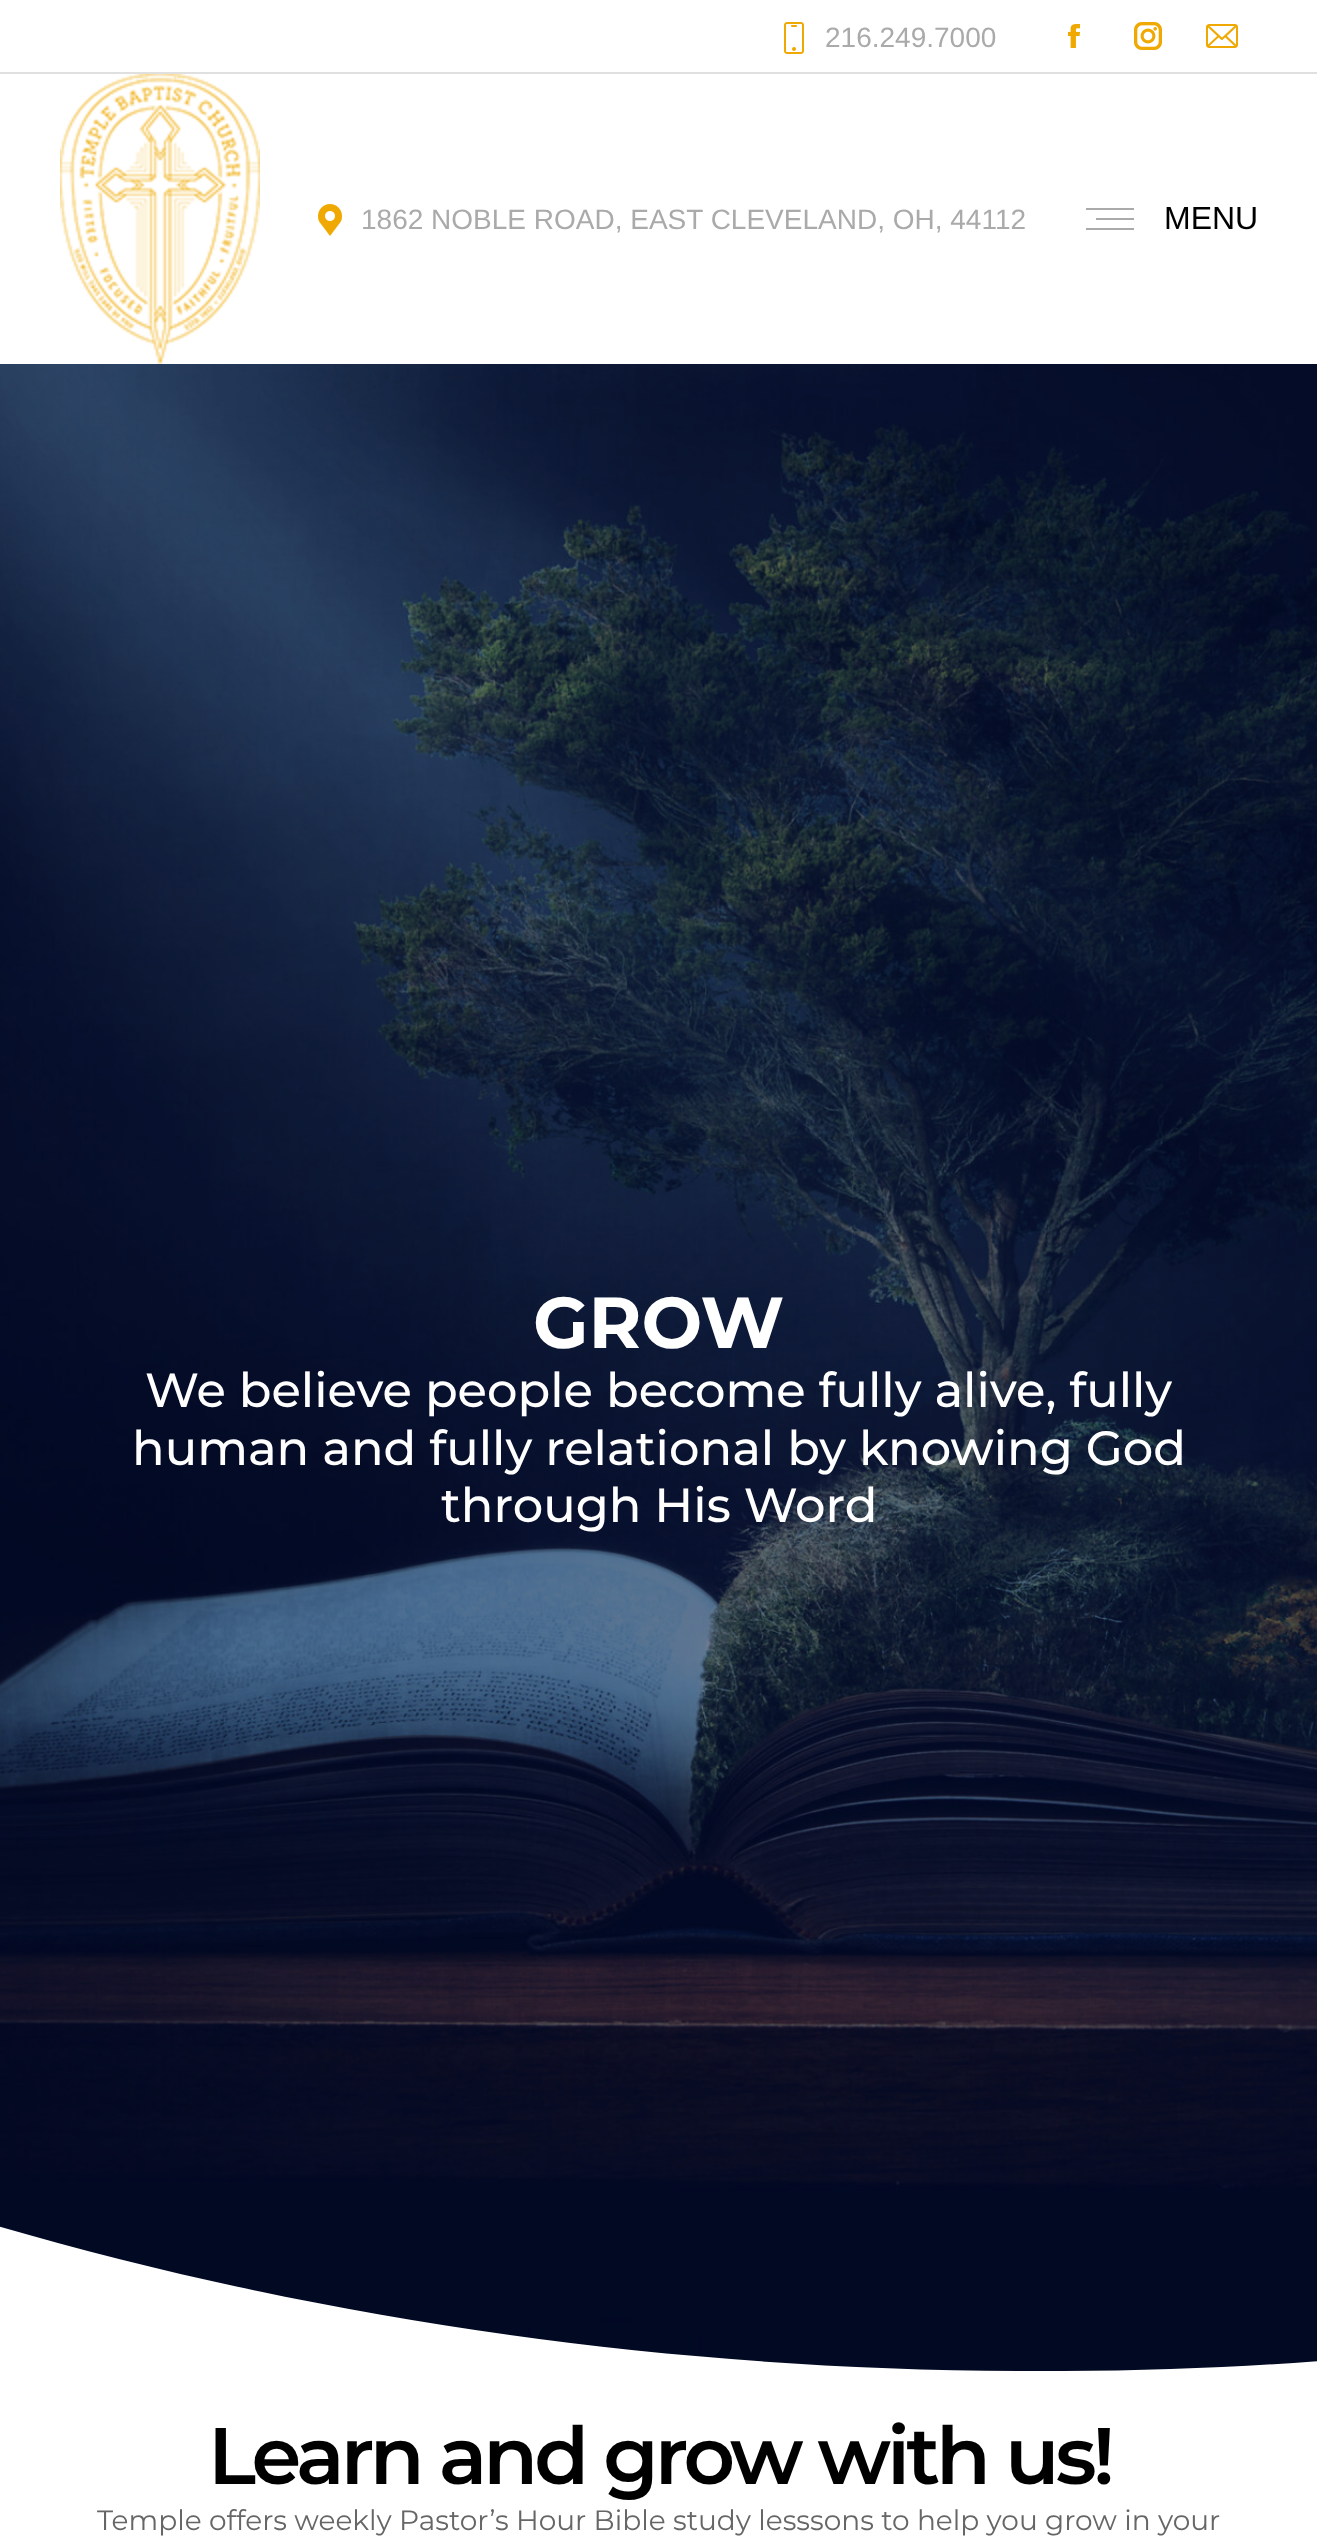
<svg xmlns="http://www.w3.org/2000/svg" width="1317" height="2539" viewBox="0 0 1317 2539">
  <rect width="100%" height="100%" fill="#ffffff"/>
  <image x="784" y="22" width="20" height="32" href="img1.png"/>
  <text x="825" y="47" font-family="Liberation Sans" font-size="28" fill="#aaaaaa">216.249.7000</text>
  <image x="1067" y="24" width="14" height="24" href="img2.png"/>
  <image x="1134" y="22" width="28" height="28" href="img3.png"/>
  <image x="1206" y="24" width="32" height="24" href="img4.png"/>
  <rect x="0" y="72" width="1317" height="2" fill="#e0e0e0"/>
  <image x="60" y="74" width="200" height="290" href="img5.png"/>
  <image x="318" y="204" width="24" height="32" href="img6.png"/>
  <text x="361" y="229" font-family="Liberation Sans" font-size="28" fill="#aaaaaa">1862 NOBLE ROAD, EAST CLEVELAND, OH, 44112</text>
  <rect x="1086" y="208" width="48" height="2" fill="#aaaaaa"/>
  <rect x="1096" y="218" width="38" height="2" fill="#aaaaaa"/>
  <rect x="1086" y="228" width="48" height="2" fill="#aaaaaa"/>
  <text x="1164" y="229" font-family="Liberation Sans" font-size="32" fill="#000000">MENU</text>
  <image x="0" y="364" width="1317" height="2008" href="img7.png"/>
  <text x="533" y="1348" font-family="Montserrat" font-size="72" font-weight="bold" fill="#ffffff">GROW</text>
  <text x="145" y="1407" font-family="Montserrat" font-size="48" font-weight="500" fill="#ffffff">We believe people become fully alive, fully</text>
  <text x="132" y="1465" font-family="Montserrat" font-size="48" font-weight="500" fill="#ffffff">human and fully relational by knowing God</text>
  <text x="441" y="1522" font-family="Montserrat" font-size="48" font-weight="500" fill="#ffffff">through His Word</text>
  <path d="M1063 2371C-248 2380-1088 1731-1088 1576V2398H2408V1576C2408 1734 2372 2365 1063 2371Z" fill="#ffffff"/>
  <text x="208" y="2484" font-family="Montserrat" font-size="80" font-weight="600" letter-spacing="-4" fill="#000000">Learn and grow with us!</text>
  <text x="97" y="2530" font-family="Montserrat" font-size="28" fill="#666666">Temple offers weekly Pastor’s Hour Bible study lesssons to help you grow in your</text>
</svg>
